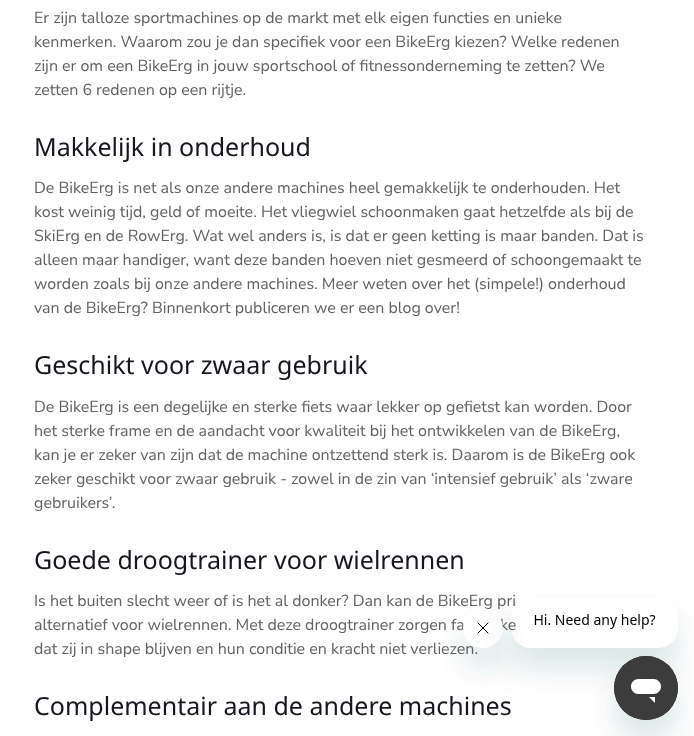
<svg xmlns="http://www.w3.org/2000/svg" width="694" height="736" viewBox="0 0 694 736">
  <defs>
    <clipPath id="clip1"><path d="M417 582H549V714H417ZM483 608C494 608 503 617 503 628C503 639 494 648 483 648C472 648 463 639 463 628C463 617 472 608 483 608Z" clip-rule="evenodd"/></clipPath>
    <filter id="blur1" x="-50%" y="-200%" width="200%" height="500%"><feGaussianBlur stdDeviation="15"/></filter>
    <clipPath id="clip2"><path d="M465 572H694V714H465ZM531 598H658C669 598 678 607 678 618V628C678 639 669 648 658 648H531C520 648 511 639 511 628V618C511 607 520 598 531 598Z" clip-rule="evenodd"/></clipPath>
  </defs>
  <rect width="100%" height="100%" fill="#ffffff"/>
  <text x="34" y="23" font-family="Nunito Sans" font-size="16" fill="#616161">Er zijn talloze sportmachines op de markt met elk eigen functies en unieke</text>
  <text x="34" y="47" font-family="Nunito Sans" font-size="16" fill="#616161">kenmerken. Waarom zou je dan specifiek voor een BikeErg kiezen? Welke redenen</text>
  <text x="34" y="71" font-family="Nunito Sans" font-size="16" fill="#616161">zijn er om een BikeErg in jouw sportschool of fitnessonderneming te zetten? We</text>
  <text x="34" y="95" font-family="Nunito Sans" font-size="16" fill="#616161">zetten 6 redenen op een rijtje.</text>
  <text x="34" y="156" font-family="Noto Sans" font-size="25" fill="#16161e">Makkelijk in onderhoud</text>
  <text x="34" y="193" font-family="Nunito Sans" font-size="16" fill="#616161">De BikeErg is net als onze andere machines heel gemakkelijk te onderhouden. Het</text>
  <text x="34" y="217" font-family="Nunito Sans" font-size="16" fill="#616161">kost weinig tijd, geld of moeite. Het vliegwiel schoonmaken gaat hetzelfde als bij de</text>
  <text x="34" y="241" font-family="Nunito Sans" font-size="16" fill="#616161">SkiErg en de RowErg. Wat wel anders is, is dat er geen ketting is maar banden. Dat is</text>
  <text x="34" y="265" font-family="Nunito Sans" font-size="16" fill="#616161">alleen maar handiger, want deze banden hoeven niet gesmeerd of schoongemaakt te</text>
  <text x="34" y="289" font-family="Nunito Sans" font-size="16" fill="#616161">worden zoals bij onze andere machines. Meer weten over het (simpele!) onderhoud</text>
  <text x="34" y="313" font-family="Nunito Sans" font-size="16" fill="#616161">van de BikeErg? Binnenkort publiceren we er een blog over!</text>
  <text x="34" y="374" font-family="Noto Sans" font-size="25" fill="#16161e">Geschikt voor zwaar gebruik</text>
  <text x="34" y="412" font-family="Nunito Sans" font-size="16" fill="#616161">De BikeErg is een degelijke en sterke fiets waar lekker op gefietst kan worden. Door</text>
  <text x="34" y="436" font-family="Nunito Sans" font-size="16" fill="#616161">het sterke frame en de aandacht voor kwaliteit bij het ontwikkelen van de BikeErg,</text>
  <text x="34" y="460" font-family="Nunito Sans" font-size="16" fill="#616161">kan je er zeker van zijn dat de machine ontzettend sterk is. Daarom is de BikeErg ook</text>
  <text x="34" y="484" font-family="Nunito Sans" font-size="16" fill="#616161">zeker geschikt voor zwaar gebruik - zowel in de zin van ‘intensief gebruik’ als ‘zware</text>
  <text x="34" y="508" font-family="Nunito Sans" font-size="16" fill="#616161">gebruikers’.</text>
  <text x="34" y="569" font-family="Noto Sans" font-size="25" fill="#16161e">Goede droogtrainer voor wielrennen</text>
  <text x="34" y="606" font-family="Nunito Sans" font-size="16" fill="#616161">Is het buiten slecht weer of is het al donker? Dan kan de BikeErg pri</text>
  <text x="34" y="630" font-family="Nunito Sans" font-size="16" fill="#616161">alternatief voor wielrennen. Met deze droogtrainer zorgen fa</text>
  <text x="500" y="630" font-family="Nunito Sans" font-size="16" fill="#616161">ke</text>
  <text x="34" y="654" font-family="Nunito Sans" font-size="16" fill="#616161">dat zij in shape blijven en hun conditie en kracht niet verliezen.</text>
  <text x="34" y="715" font-family="Noto Sans" font-size="25" fill="#16161e">Complementair aan de andere machines</text>
  <g clip-path="url(#clip1)">
    <rect x="463" y="628" width="40" height="40" rx="20" fill="#17494d" fill-opacity="0.15" filter="url(#blur1)"/>
  </g>
  <image x="463" y="608" width="40" height="26" href="img2.png"/>
  <g clip-path="url(#clip2)">
    <rect x="511" y="618" width="167" height="50" rx="20" fill="#17494d" fill-opacity="0.15" filter="url(#blur1)"/>
  </g>
  <image x="521" y="598" width="135" height="33" href="img1.png"/>
  <rect x="614" y="676" width="64" height="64" rx="32" fill="#17494d" fill-opacity="0.15" filter="url(#blur1)"/>
  <image x="614" y="656" width="64" height="64" href="img3.png"/>
</svg>
